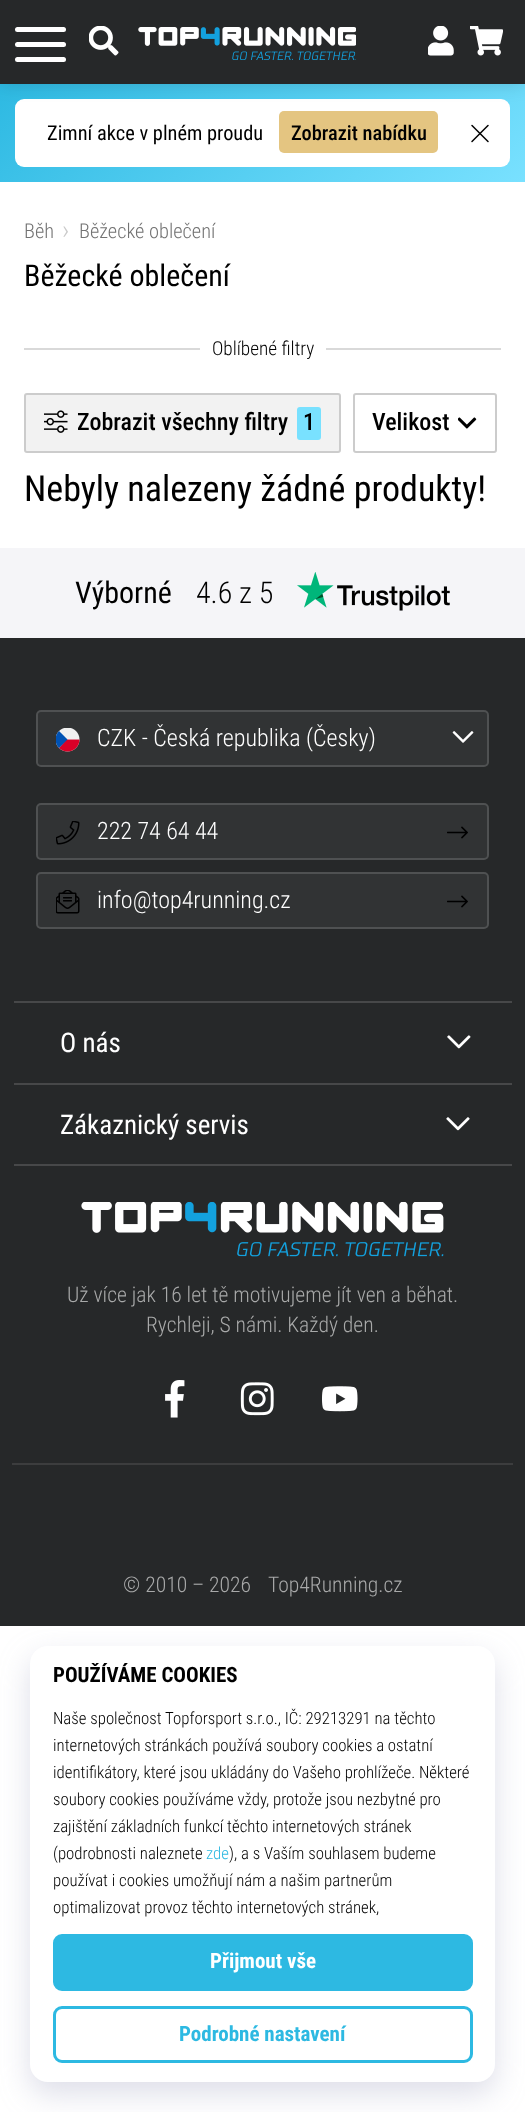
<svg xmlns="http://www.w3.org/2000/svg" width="525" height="2112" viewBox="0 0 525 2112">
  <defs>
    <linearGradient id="g1" gradientUnits="userSpaceOnUse" x1="395" y1="291" x2="130" y2="-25"><stop offset="0" stop-color="#79e1ff"/><stop offset="1" stop-color="#2db9e2"/></linearGradient>
    <filter id="blur1" x="-50%" y="-200%" width="200%" height="500%"><feGaussianBlur stdDeviation="9"/></filter>
    <filter id="blur2" x="-50%" y="-200%" width="200%" height="500%"><feGaussianBlur stdDeviation="15"/></filter>
  </defs>
  <rect width="100%" height="100%" fill="#ffffff"/>
  <rect x="0" y="84" width="525" height="98" fill="url(#g1)"/>
  <rect x="15" y="99" width="495" height="68" rx="9" fill="#ffffff"/>
  <rect x="279" y="111" width="159" height="42" rx="5" fill="#e4c581"/>
  <rect x="0" y="0" width="525" height="84" fill="#000000" fill-opacity="0.15" filter="url(#blur1)"/>
  <rect x="0" y="0" width="525" height="84" fill="#262829"/>
  <rect x="15" y="27" width="51" height="5" rx="2.5" fill="#ffffff"/>
  <rect x="15" y="42" width="51" height="5" rx="2.5" fill="#ffffff"/>
  <rect x="15" y="57" width="51" height="5" rx="2.5" fill="#ffffff"/>
  <image x="89" y="26" width="30" height="30" href="img1.png"/>
  <image x="138" y="27" width="218" height="33" href="img2.png"/>
  <image x="428" y="26" width="26" height="30" href="img3.png"/>
  <image x="470" y="26" width="33" height="30" href="img4.png"/>
  <text x="47" y="140" font-family="Roboto Condensed" font-size="20.4" fill="#000000">Zimní akce v plném proudu</text>
  <text x="291" y="140" font-family="Roboto Condensed" font-size="20.4" font-weight="500" fill="#000000">Zobrazit nabídku</text>
  <path d="M488 141.5L472 125.5M488 125.5L472 141.5" fill="none" stroke="#000000" stroke-width="1.5" stroke-linecap="round" stroke-linejoin="round"/>
  <text x="24" y="238" font-family="Roboto Condensed" font-size="20.4" font-weight="300" fill="#727272">Běh</text>
  <text x="62" y="239" font-family="Roboto Condensed" font-size="27" font-weight="300" fill="#cacaca">›</text>
  <text x="79" y="238" font-family="Roboto Condensed" font-size="20.4" font-weight="300" fill="#727272">Běžecké oblečení</text>
  <text x="24" y="286" font-family="Roboto Condensed" font-size="30" fill="#000000">Běžecké oblečení</text>
  <rect x="24" y="348" width="477" height="2" fill="#d9d9d9"/>
  <rect x="200" y="348" width="126" height="2" fill="#ffffff"/>
  <text x="212" y="355" font-family="Roboto Condensed" font-size="19.25" font-weight="300" fill="#000000">Oblíbené filtry</text>
  <rect x="25" y="394" width="315" height="58" rx="2" fill="#f2f2f2" stroke="#cccccc" stroke-width="2"/>
  <image x="44" y="410" width="24" height="23" href="img5.png"/>
  <text x="77" y="430" font-family="Roboto Condensed" font-size="24" font-weight="500" fill="#000000">Zobrazit všechny filtry</text>
  <rect x="297" y="407" width="24" height="33" rx="3" fill="#79e1ff"/>
  <text x="303" y="430" font-family="Roboto Condensed" font-size="24" font-weight="500" fill="#000000">1</text>
  <rect x="354" y="394" width="142" height="58" rx="2" fill="none" stroke="#cccccc" stroke-width="2"/>
  <text x="372" y="430" font-family="Roboto Condensed" font-size="24" font-weight="500" fill="#000000">Velikost</text>
  <image x="458" y="417" width="19" height="12" href="img6.png"/>
  <text x="24" y="501" font-family="Roboto Condensed" font-size="36" fill="#000000">Nebyly nalezeny žádné produkty!</text>
  <rect x="0" y="548" width="525" height="90" fill="#f5f5f8"/>
  <text x="75" y="603" font-family="Roboto Condensed" font-size="30" fill="#000000">Výborné</text>
  <text x="196" y="603" font-family="Roboto Condensed" font-size="30" font-weight="300" fill="#000000">4.6 z 5</text>
  <image x="297" y="572" width="153" height="39" href="img7.png"/>
  <rect x="0" y="638" width="525" height="988" fill="#262829"/>
  <rect x="36" y="710" width="453" height="57" rx="5" fill="#313334"/>
  <rect x="37" y="711" width="451" height="55" rx="4" fill="none" stroke="#ffffff" stroke-opacity="0.15" stroke-width="2"/>
  <image x="56" y="728" width="24" height="24" href="img8.png"/>
  <text x="97" y="746" font-family="Roboto Condensed" font-size="24" font-weight="300" fill="#ffffff">CZK - Česká republika (Česky)</text>
  <image x="452" y="731" width="22" height="12" href="img9.png"/>
  <rect x="36" y="803" width="453" height="57" rx="5" fill="#313334"/>
  <rect x="37" y="804" width="451" height="55" rx="4" fill="none" stroke="#ffffff" stroke-opacity="0.15" stroke-width="2"/>
  <image x="56" y="821" width="24" height="24" href="img10.png"/>
  <text x="97" y="839" font-family="Roboto Condensed" font-size="24" font-weight="300" fill="#ffffff">222 74 64 44</text>
  <image x="447" y="826" width="21" height="13" href="img11.png"/>
  <rect x="36" y="872" width="453" height="57" rx="5" fill="#313334"/>
  <rect x="37" y="873" width="451" height="55" rx="4" fill="none" stroke="#ffffff" stroke-opacity="0.15" stroke-width="2"/>
  <image x="56" y="890" width="24" height="24" href="img12.png"/>
  <text x="97" y="908" font-family="Roboto Condensed" font-size="24" font-weight="300" fill="#ffffff">info@top4running.cz</text>
  <image x="447" y="895" width="21" height="13" href="img11.png"/>
  <rect x="14" y="1001" width="498" height="2" fill="#474849"/>
  <text x="60" y="1052" font-family="Roboto Condensed" font-size="27" fill="#ffffff">O nás</text>
  <image x="447" y="1035" width="24" height="14" href="img13.png"/>
  <rect x="14" y="1083" width="498" height="2" fill="#474849"/>
  <rect x="14" y="1164" width="498" height="2" fill="#474849"/>
  <text x="60" y="1134" font-family="Roboto Condensed" font-size="27" fill="#ffffff">Zákaznický servis</text>
  <image x="446" y="1117" width="24" height="14" href="img14.png"/>
  <image x="81" y="1202" width="363" height="55" href="img15.png"/>
  <text x="67" y="1302" font-family="Roboto Condensed" font-size="21.6" font-weight="300" fill="#a8a9a9">Už více jak 16 let tě motivujeme jít ven a běhat.</text>
  <text x="146" y="1332" font-family="Roboto Condensed" font-size="21.6" font-weight="300" fill="#a8a9a9">Rychleji, S námi. Každý den.</text>
  <image x="165" y="1380" width="20" height="38" href="img16.png"/>
  <image x="240" y="1382" width="34" height="34" href="img17.png"/>
  <image x="322" y="1386" width="36" height="26" href="img18.png"/>
  <rect x="12" y="1463" width="501" height="2" fill="#3c3d3e"/>
  <text x="123" y="1592" font-family="Roboto Condensed" font-size="21.6" font-weight="300" fill="#a8a9a9">© 2010 – 2026</text>
  <text x="268" y="1592" font-family="Roboto Condensed" font-size="21.6" font-weight="300" fill="#a8a9a9">Top4Running.cz</text>
  <rect x="30" y="1658" width="465" height="436" rx="18" fill="#bcbed2" fill-opacity="0.5" filter="url(#blur2)"/>
  <rect x="30" y="1646" width="465" height="436" rx="18" fill="#ffffff"/>
  <text x="53" y="1682" font-family="Roboto Condensed" font-size="21" font-weight="bold" fill="#000000">POUŽÍVÁME COOKIES</text>
  <text x="53" y="1724" font-family="Roboto Condensed" font-size="16.8" font-weight="300" fill="#000000">Naše společnost Topforsport s.r.o., IČ: 29213291 na těchto</text>
  <text x="53" y="1751" font-family="Roboto Condensed" font-size="16.8" font-weight="300" fill="#000000">internetových stránkách používá soubory cookies a ostatní</text>
  <text x="53" y="1778" font-family="Roboto Condensed" font-size="16.8" font-weight="300" fill="#000000">identifikátory, které jsou ukládány do Vašeho prohlížeče. Některé</text>
  <text x="53" y="1805" font-family="Roboto Condensed" font-size="16.8" font-weight="300" fill="#000000">soubory cookies používáme vždy, protože jsou nezbytné pro</text>
  <text x="53" y="1832" font-family="Roboto Condensed" font-size="16.8" font-weight="300" fill="#000000">zajištění základních funkcí těchto internetových stránek</text>
  <text x="53" y="1859" font-family="Roboto Condensed" font-size="16.8" font-weight="300" fill="#000000">(podrobnosti naleznete</text>
  <text x="206" y="1859" font-family="Roboto Condensed" font-size="16.8" font-weight="300" fill="#2db9e2">zde</text>
  <text x="229" y="1859" font-family="Roboto Condensed" font-size="16.8" font-weight="300" fill="#000000">), a s Vaším souhlasem budeme</text>
  <text x="53" y="1886" font-family="Roboto Condensed" font-size="16.8" font-weight="300" fill="#000000">používat i cookies umožňují nám a našim partnerům</text>
  <text x="53" y="1913" font-family="Roboto Condensed" font-size="16.8" font-weight="300" fill="#000000">optimalizovat provoz těchto internetových stránek,</text>
  <rect x="54.5" y="1935.5" width="417" height="54" rx="7.5" fill="#2db9e2" stroke="#2db9e2" stroke-width="3"/>
  <text x="210" y="1968" font-family="Roboto Condensed" font-size="21" font-weight="bold" fill="#ffffff">Přijmout vše</text>
  <rect x="54.5" y="2007.5" width="417" height="54" rx="7.5" fill="none" stroke="#2db9e2" stroke-width="3"/>
  <text x="179" y="2041" font-family="Roboto Condensed" font-size="21" font-weight="bold" fill="#2db9e2">Podrobné nastavení</text>
</svg>
